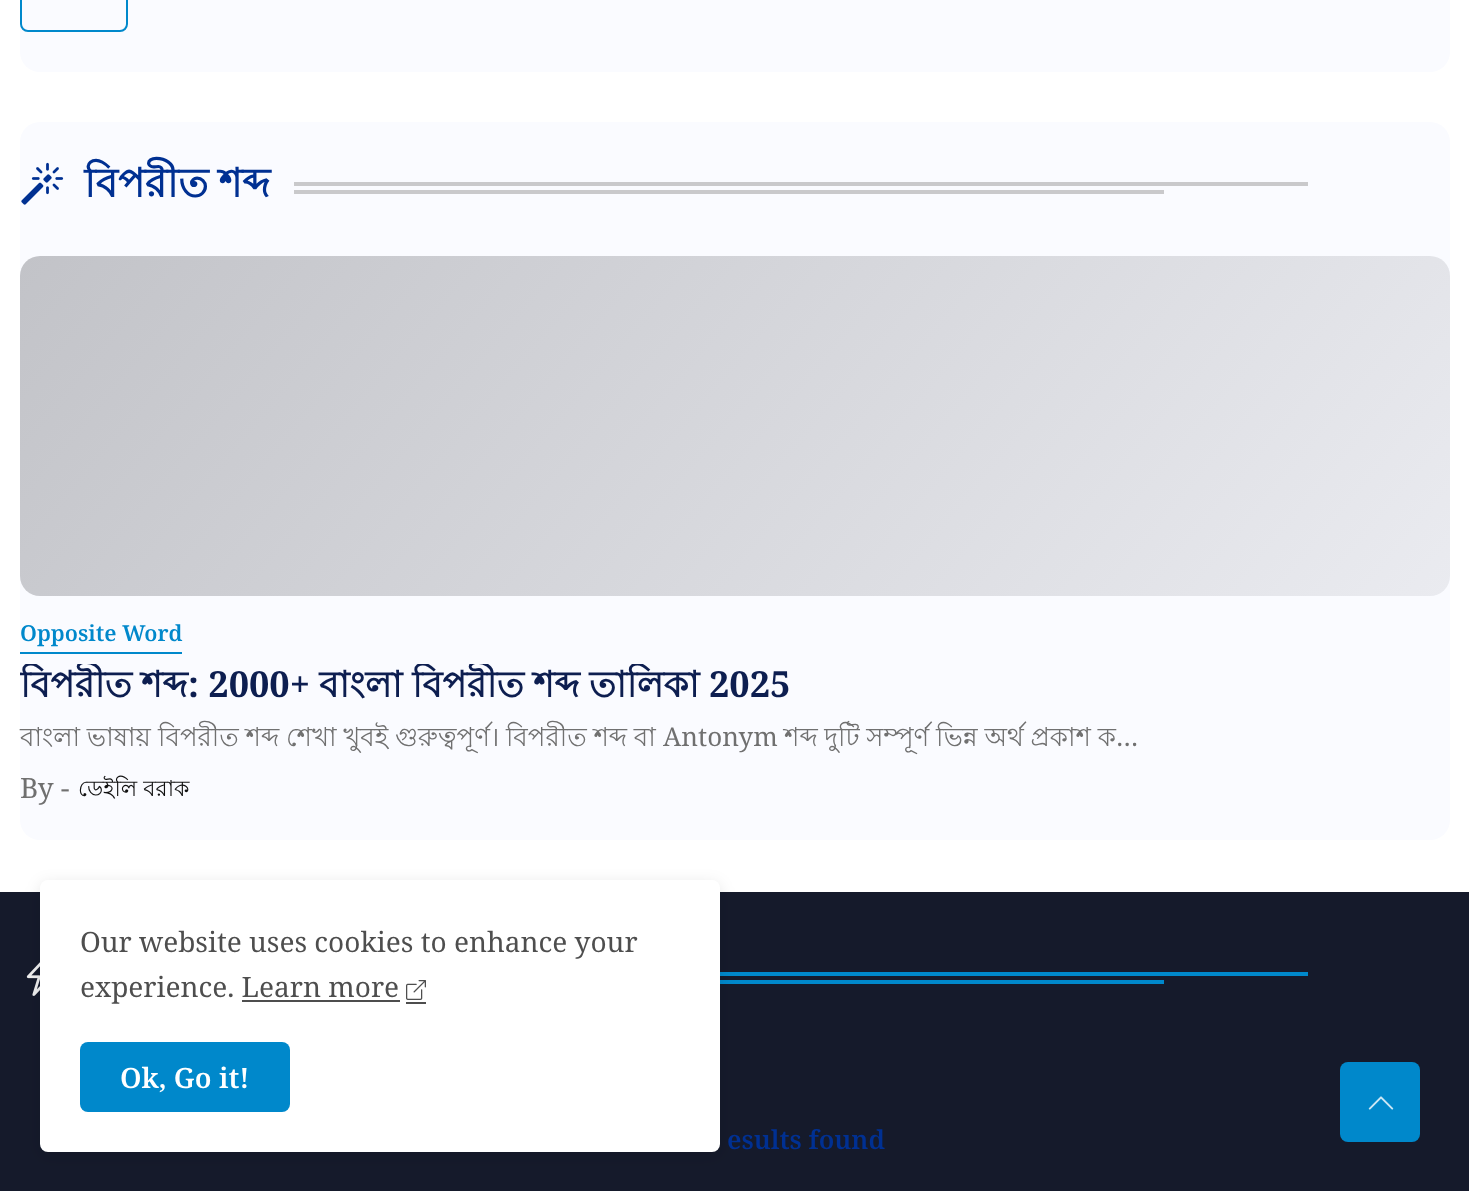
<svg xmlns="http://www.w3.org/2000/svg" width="1469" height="1191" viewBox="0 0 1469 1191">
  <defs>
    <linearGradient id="g1" gradientUnits="userSpaceOnUse" x1="443" y1="-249" x2="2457" y2="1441"><stop offset="0" stop-color="#c2c3c8"/><stop offset="0.5" stop-color="#eaebf0"/><stop offset="1" stop-color="#babbbf"/></linearGradient>
    <clipPath id="clip1"><rect x="20" y="664" width="1430" height="42"/></clipPath>
    <filter id="blur1" x="-50%" y="-200%" width="200%" height="500%"><feGaussianBlur stdDeviation="8"/></filter>
  </defs>
  <rect width="100%" height="100%" fill="#ffffff"/>
  <rect x="20" y="-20" width="1430" height="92" rx="20" fill="#fafbff"/>
  <rect x="21" y="-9" width="106" height="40" rx="7" fill="none" stroke="#0088cb" stroke-width="2"/>
  <rect x="20" y="122" width="1430" height="718" rx="20" fill="#fafbff"/>
  <image x="21" y="162" width="43" height="43" href="img1.png"/>
  <text x="84" y="197" word-spacing="-1" font-family="Lohit Bengali" font-size="40" font-weight="bold" fill="#003092">বিপরীত শব্দ</text>
  <rect x="294" y="182" width="1014" height="4" fill="#c9c9cb"/>
  <rect x="294" y="190" width="870" height="4" fill="#c9c9cb"/>
  <rect x="20" y="256" width="1430" height="340" rx="20" fill="url(#g1)"/>
  <rect x="20" y="652" width="162" height="2" fill="#0088cb"/>
  <text x="20" y="641" font-family="Noto Serif" font-size="22" font-weight="600" fill="#0088cb">Opposite Word</text>
  <g clip-path="url(#clip1)">
    <text x="20" y="697" font-family="Lohit Bengali" font-size="36" font-weight="bold" fill="#0d1e50">বিপরীত</text>
  </g>
  <text x="141" y="697" font-family="Lohit Bengali" font-size="36" font-weight="bold" fill="#0d1e50">শব্দ</text>
  <text x="188" y="697" font-family="Noto Serif" font-size="36" font-weight="bold" fill="#0d1e50">: 2000+</text>
  <text x="319" y="697" font-family="Lohit Bengali" font-size="36" font-weight="bold" fill="#0d1e50">বাংলা</text>
  <g clip-path="url(#clip1)">
    <text x="412" y="697" font-family="Lohit Bengali" font-size="36" font-weight="bold" fill="#0d1e50">বিপরীত</text>
  </g>
  <text x="533" y="697" font-family="Lohit Bengali" font-size="36" font-weight="bold" fill="#0d1e50">শব্দ</text>
  <g clip-path="url(#clip1)">
    <text x="589" y="697" font-family="Lohit Bengali" font-size="36" font-weight="bold" fill="#0d1e50">তালিকা</text>
  </g>
  <text x="709" y="697" font-family="Noto Serif" font-size="36" font-weight="bold" fill="#0d1e50">2025</text>
  <text x="20" y="746" word-spacing="-0.5" font-family="Lohit Bengali" font-size="26" fill="#707070">বাংলা ভাষায়</text>
  <text x="158" y="746" word-spacing="-0.5" font-family="Lohit Bengali" font-size="26" fill="#707070">বিপরীত শব্দ</text>
  <text x="286" y="746" word-spacing="-0.5" font-family="Lohit Bengali" font-size="26" fill="#707070">শেখা খুবই গুরুত্বপূর্ণ। বিপরীত শব্দ বা</text>
  <text x="663" y="746" font-family="Noto Serif" font-size="26" fill="#707070">Antonym</text>
  <text x="784" y="746" word-spacing="-0.5" font-family="Lohit Bengali" font-size="26" fill="#707070">শব্দ দুটি সম্পূর্ণ ভিন্ন অর্থ প্রকাশ ক</text>
  <text x="1116" y="746" font-family="Noto Serif" font-size="26" fill="#707070">…</text>
  <text x="20" y="798" font-family="Noto Serif" font-size="28" fill="#707070">By -</text>
  <text x="78" y="796" font-family="Lohit Bengali" font-size="22" fill="#101010">ডেইলি বরাক</text>
  <rect x="0" y="892" width="1469" height="299" fill="#151a2b"/>
  <image x="26" y="962" width="14" height="34" href="img3.png"/>
  <rect x="720" y="972" width="588" height="4" fill="#0088cb"/>
  <rect x="720" y="980" width="444" height="4" fill="#0088cb"/>
  <rect x="40" y="884" width="680" height="272" rx="8" fill="#000000" fill-opacity="0.11" filter="url(#blur1)"/>
  <rect x="40" y="880" width="680" height="272" rx="8" fill="#ffffff"/>
  <text x="80" y="952" font-family="Noto Serif" font-size="28" fill="#4e4e4e">Our website uses cookies to enhance your</text>
  <text x="80" y="997" font-family="Noto Serif" font-size="28" fill="#4e4e4e">experience. Learn more</text>
  <image x="406" y="980" width="20" height="20" href="img2.png"/>
  <rect x="242" y="1000" width="158" height="2" fill="#4e4e4e"/>
  <rect x="406" y="1002" width="20" height="2" fill="#4e4e4e"/>
  <rect x="80" y="1042" width="210" height="70" rx="8" fill="#0088cb"/>
  <text x="120" y="1088" font-family="Noto Serif" font-size="28" font-weight="600" fill="#ffffff">Ok, Go it!</text>
  <text x="727" y="1149" font-family="Noto Serif" font-size="26" font-weight="600" fill="#003092">esults found</text>
  <rect x="1340" y="1062" width="80" height="80" rx="8" fill="#0088cb"/>
  <image x="1368" y="1096" width="26" height="14" href="img4.png"/>
</svg>
